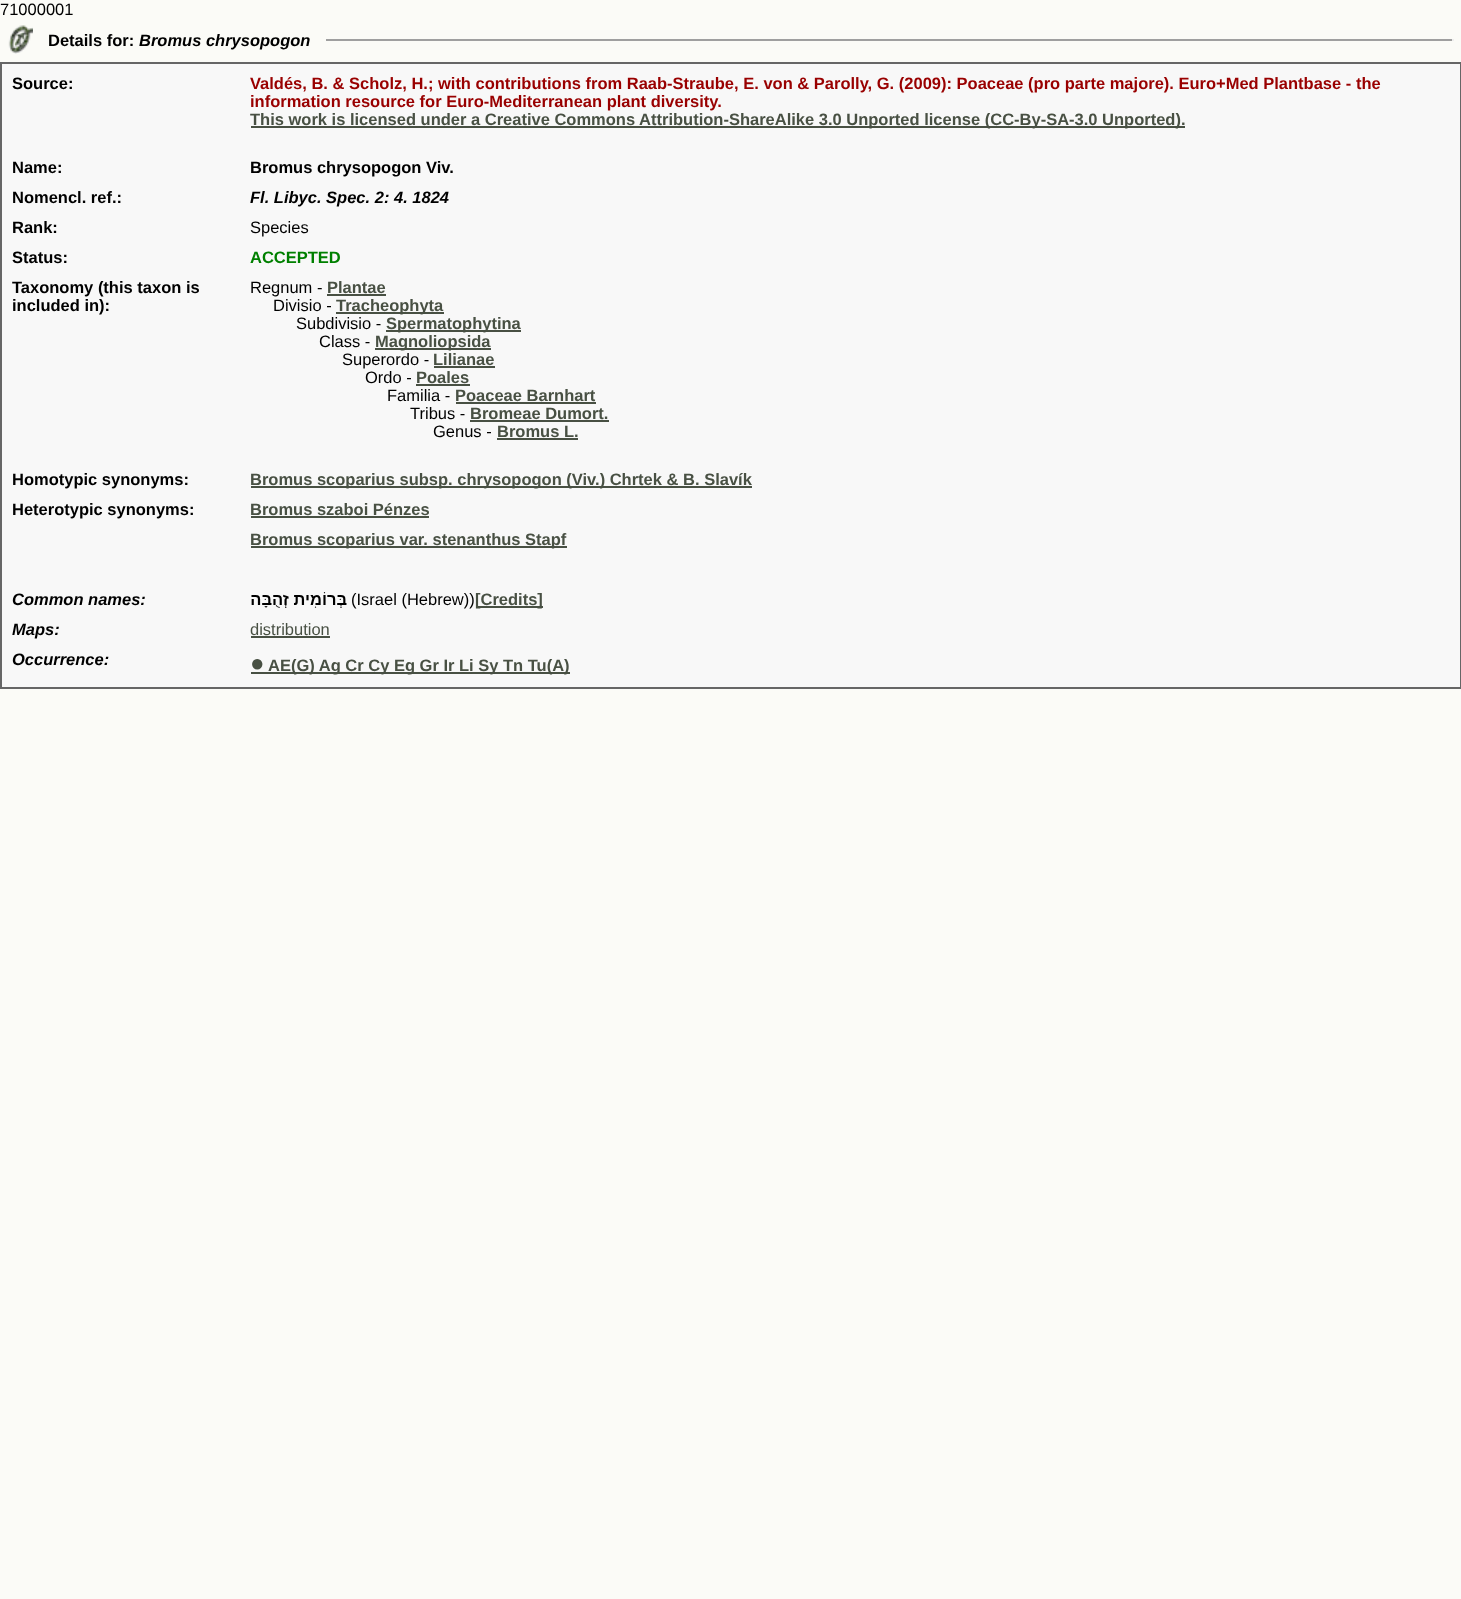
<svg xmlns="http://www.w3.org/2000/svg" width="1461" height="1599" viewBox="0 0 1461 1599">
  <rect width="100%" height="100%" fill="#fbfbf7"/>
  <text x="0" y="15" font-family="Liberation Sans" font-size="16.5" fill="#000000">71000001</text>
  <image x="8" y="25" width="25" height="29" href="img1.png"/>
  <text x="48" y="46" font-family="Liberation Sans" font-size="16.5" font-weight="bold" fill="#000000">Details for:</text>
  <text x="139" y="46" font-family="Liberation Sans" font-size="16.5" font-weight="bold" font-style="italic" fill="#000000">Bromus chrysopogon</text>
  <rect x="326" y="39" width="1128" height="2" fill="#9f9f9f"/>
  <rect x="1452" y="39" width="2" height="2" fill="#eeeeee"/>
  <rect x="0" y="62" width="1461" height="2" fill="#666666"/>
  <rect x="1460" y="62" width="1" height="627" fill="#666666"/>
  <rect x="0" y="687" width="1461" height="2" fill="#666666"/>
  <rect x="0" y="62" width="2" height="627" fill="#666666"/>
  <rect x="2" y="64" width="1458" height="623" fill="#f8f8f8"/>
  <text x="12" y="89" font-family="Liberation Sans" font-size="16.5" font-weight="bold" fill="#000000">Source:</text>
  <text x="250" y="89" font-family="Liberation Sans" font-size="16.5" font-weight="bold" fill="#990000">Valdés, B. &amp; Scholz, H.; with contributions from Raab-Straube, E. von &amp; Parolly, G. (2009): Poaceae (pro parte majore). Euro+Med Plantbase - the</text>
  <text x="250" y="107" font-family="Liberation Sans" font-size="16.5" font-weight="bold" fill="#990000">information resource for Euro-Mediterranean plant diversity.</text>
  <rect x="251" y="126" width="934" height="2" fill="#485043"/>
  <text x="250" y="125" font-family="Liberation Sans" font-size="16.5" font-weight="bold" fill="#485043">This work is licensed under a Creative Commons Attribution-ShareAlike 3.0 Unported license (CC-By-SA-3.0 Unported).</text>
  <text x="12" y="173" font-family="Liberation Sans" font-size="16.5" font-weight="bold" fill="#000000">Name:</text>
  <text x="250" y="173" font-family="Liberation Sans" font-size="16.5" font-weight="bold" fill="#000000">Bromus chrysopogon Viv.</text>
  <text x="12" y="203" font-family="Liberation Sans" font-size="16.5" font-weight="bold" fill="#000000">Nomencl. ref.:</text>
  <text x="250" y="203" font-family="Liberation Sans" font-size="16.5" font-weight="bold" font-style="italic" fill="#000000">Fl. Libyc. Spec. 2: 4. 1824</text>
  <text x="12" y="233" font-family="Liberation Sans" font-size="16.5" font-weight="bold" fill="#000000">Rank:</text>
  <text x="250" y="233" font-family="Liberation Sans" font-size="16.5" fill="#000000">Species</text>
  <text x="12" y="263" font-family="Liberation Sans" font-size="16.5" font-weight="bold" fill="#000000">Status:</text>
  <text x="250" y="263" font-family="Liberation Sans" font-size="16.5" font-weight="bold" fill="#008000">ACCEPTED</text>
  <text x="12" y="293" font-family="Liberation Sans" font-size="16.5" font-weight="bold" fill="#000000">Taxonomy (this taxon is</text>
  <text x="12" y="311" font-family="Liberation Sans" font-size="16.5" font-weight="bold" fill="#000000">included in):</text>
  <text x="250" y="293" font-family="Liberation Sans" font-size="16.5" fill="#000000">Regnum -</text>
  <text x="327" y="293" font-family="Liberation Sans" font-size="16.5" font-weight="bold" fill="#485043">Plantae</text>
  <rect x="327" y="294" width="59" height="2" fill="#485043"/>
  <text x="273" y="311" font-family="Liberation Sans" font-size="16.5" fill="#000000">Divisio -</text>
  <rect x="336" y="312" width="108" height="2" fill="#485043"/>
  <text x="336" y="311" font-family="Liberation Sans" font-size="16.5" font-weight="bold" fill="#485043">Tracheophyta</text>
  <text x="296" y="329" font-family="Liberation Sans" font-size="16.5" fill="#000000">Subdivisio -</text>
  <rect x="386" y="330" width="135" height="2" fill="#485043"/>
  <text x="386" y="329" font-family="Liberation Sans" font-size="16.5" font-weight="bold" fill="#485043">Spermatophytina</text>
  <text x="319" y="347" font-family="Liberation Sans" font-size="16.5" fill="#000000">Class -</text>
  <rect x="375" y="348" width="116" height="2" fill="#485043"/>
  <text x="375" y="347" font-family="Liberation Sans" font-size="16.5" font-weight="bold" fill="#485043">Magnoliopsida</text>
  <text x="342" y="365" font-family="Liberation Sans" font-size="16.5" fill="#000000">Superordo -</text>
  <text x="433" y="365" font-family="Liberation Sans" font-size="16.5" font-weight="bold" fill="#485043">Lilianae</text>
  <rect x="434" y="366" width="61" height="2" fill="#485043"/>
  <text x="365" y="383" font-family="Liberation Sans" font-size="16.5" fill="#000000">Ordo -</text>
  <text x="416" y="383" font-family="Liberation Sans" font-size="16.5" font-weight="bold" fill="#485043">Poales</text>
  <rect x="416" y="384" width="54" height="2" fill="#485043"/>
  <text x="387" y="401" font-family="Liberation Sans" font-size="16.5" fill="#000000">Familia -</text>
  <text x="455" y="401" font-family="Liberation Sans" font-size="16.5" font-weight="bold" fill="#485043">Poaceae Barnhart</text>
  <rect x="456" y="402" width="140" height="2" fill="#485043"/>
  <text x="410" y="419" font-family="Liberation Sans" font-size="16.5" fill="#000000">Tribus -</text>
  <text x="470" y="419" font-family="Liberation Sans" font-size="16.5" font-weight="bold" fill="#485043">Bromeae Dumort.</text>
  <rect x="470" y="420" width="139" height="2" fill="#485043"/>
  <text x="433" y="437" font-family="Liberation Sans" font-size="16.5" fill="#000000">Genus -</text>
  <text x="497" y="437" font-family="Liberation Sans" font-size="16.5" font-weight="bold" fill="#485043">Bromus L.</text>
  <rect x="497" y="438" width="81" height="2" fill="#485043"/>
  <text x="12" y="485" font-family="Liberation Sans" font-size="16.5" font-weight="bold" fill="#000000">Homotypic synonyms:</text>
  <rect x="251" y="486" width="501" height="2" fill="#485043"/>
  <text x="250" y="485" font-family="Liberation Sans" font-size="16.5" font-weight="bold" fill="#485043">Bromus scoparius subsp. chrysopogon (Viv.) Chrtek &amp; B. Slavík</text>
  <text x="12" y="515" font-family="Liberation Sans" font-size="16.5" font-weight="bold" fill="#000000">Heterotypic synonyms:</text>
  <text x="250" y="515" font-family="Liberation Sans" font-size="16.5" font-weight="bold" fill="#485043">Bromus szaboi Pénzes</text>
  <rect x="251" y="516" width="178" height="2" fill="#485043"/>
  <rect x="251" y="546" width="316" height="2" fill="#485043"/>
  <text x="250" y="545" font-family="Liberation Sans" font-size="16.5" font-weight="bold" fill="#485043">Bromus scoparius var. stenanthus Stapf</text>
  <text x="12" y="605" font-family="Liberation Sans" font-size="16.5" font-weight="bold" font-style="italic" fill="#000000">Common names:</text>
  <text x="347" y="605" font-family="Liberation Sans" font-size="16.5" font-weight="bold" direction="rtl" fill="#000000">בְּרוֹמִית זְהֻבָּה</text>
  <text x="351" y="605" font-family="Liberation Sans" font-size="16.5" fill="#000000">(Israel (Hebrew))</text>
  <rect x="476" y="606" width="67" height="2" fill="#485043"/>
  <text x="475" y="605" font-family="Liberation Sans" font-size="16.5" font-weight="bold" fill="#485043">[Credits]</text>
  <text x="12" y="635" font-family="Liberation Sans" font-size="16.5" font-weight="bold" font-style="italic" fill="#000000">Maps:</text>
  <text x="250" y="635" font-family="Liberation Sans" font-size="16.5" fill="#485043">distribution</text>
  <rect x="251" y="636" width="79" height="2" fill="#485043"/>
  <text x="12" y="665" font-family="Liberation Sans" font-size="16.5" font-weight="bold" font-style="italic" fill="#000000">Occurrence:</text>
  <text x="250" y="671" font-family="Liberation Sans" font-size="24" font-weight="bold" fill="#485043">●</text>
  <rect x="251" y="672" width="319" height="2" fill="#485043"/>
  <text x="268" y="671" font-family="Liberation Sans" font-size="16.5" font-weight="bold" fill="#485043">AE(G) Ag Cr Cy Eg Gr Ir Li Sy Tn Tu(A)</text>
</svg>
